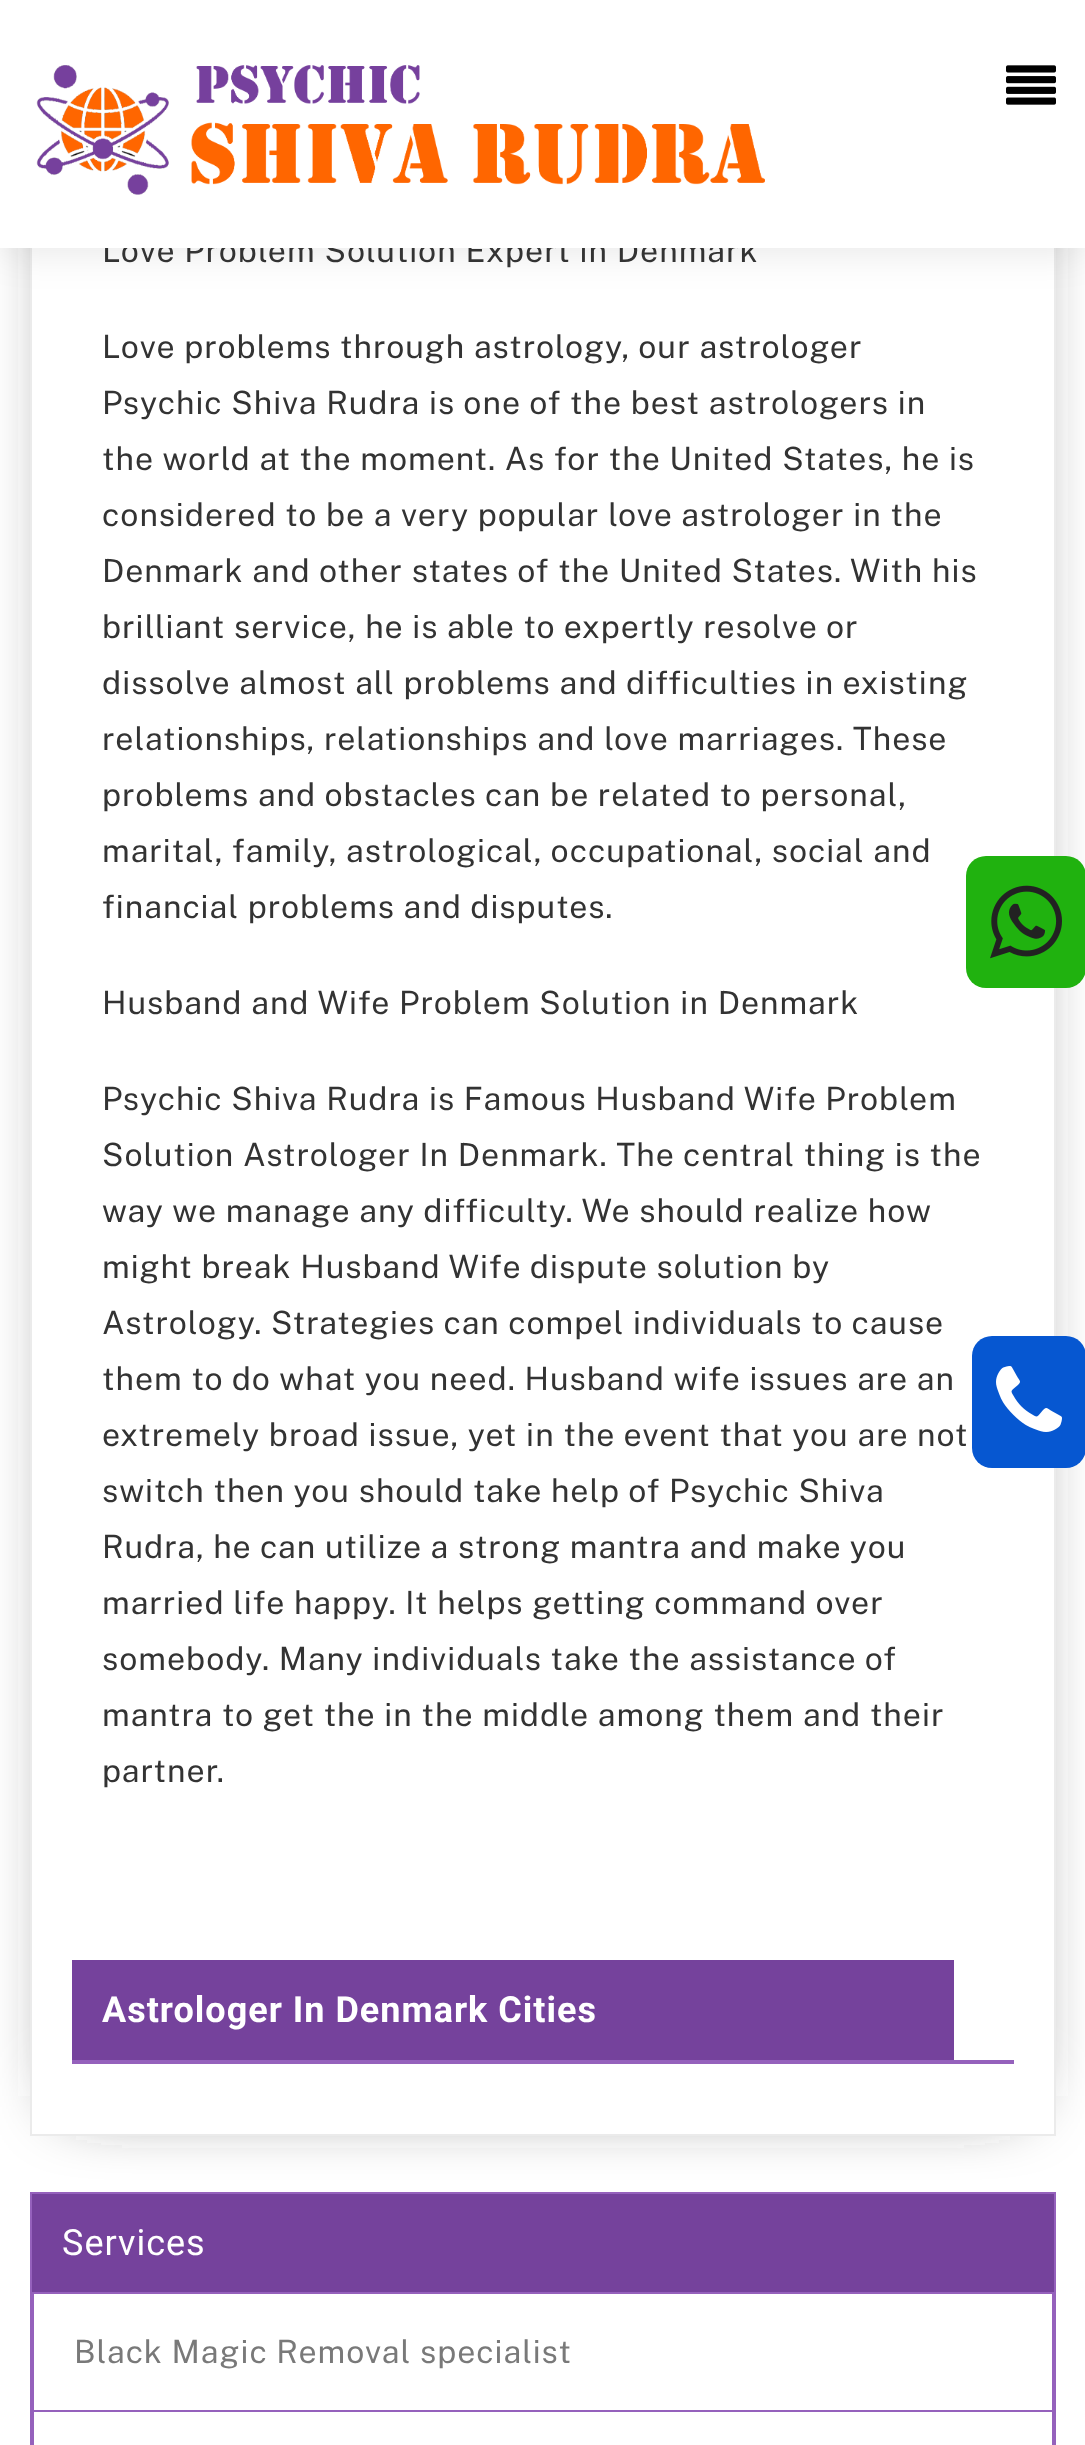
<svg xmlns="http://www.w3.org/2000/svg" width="1085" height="2445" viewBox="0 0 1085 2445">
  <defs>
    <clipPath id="clip1"><path d="M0 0H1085V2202H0ZM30-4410H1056V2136H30Z" clip-rule="evenodd"/></clipPath>
    <filter id="blur1" x="-50%" y="-200%" width="200%" height="500%"><feGaussianBlur stdDeviation="35"/></filter>
    <filter id="blur2" x="-50%" y="-200%" width="200%" height="500%"><feGaussianBlur stdDeviation="20"/></filter>
  </defs>
  <rect width="100%" height="100%" fill="#ffffff"/>
  <g clip-path="url(#clip1)">
    <rect x="70" y="-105" width="946" height="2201" fill="#333333" filter="url(#blur1)"/>
  </g>
  <rect x="31" y="-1" width="1024" height="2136" fill="none" stroke="#ebebeb" stroke-width="2"/>
  <rect x="0" y="2" width="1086" height="248" fill="#000000" fill-opacity="0.1" filter="url(#blur2)"/>
  <text x="102" y="262" font-family="Public Sans" font-size="32" letter-spacing="1" fill="#333333">Love Problem Solution Expert in Denmark</text>
  <rect x="0" y="0" width="1085" height="248" fill="#ffffff"/>
  <image x="36" y="65" width="729" height="130" href="img1.png"/>
  <image x="1006" y="65" width="50" height="40" href="img2.png"/>
  <text x="102" y="358" font-family="Public Sans" font-size="32" letter-spacing="1" fill="#333333">Love problems through astrology, our astrologer</text>
  <text x="102" y="414" font-family="Public Sans" font-size="32" letter-spacing="1" fill="#333333">Psychic Shiva Rudra is one of the best astrologers in</text>
  <text x="102" y="470" font-family="Public Sans" font-size="32" letter-spacing="1" fill="#333333">the world at the moment. As for the United States, he is</text>
  <text x="102" y="526" font-family="Public Sans" font-size="32" letter-spacing="1" fill="#333333">considered to be a very popular love astrologer in the</text>
  <text x="102" y="582" font-family="Public Sans" font-size="32" letter-spacing="1" fill="#333333">Denmark and other states of the United States. With his</text>
  <text x="102" y="638" font-family="Public Sans" font-size="32" letter-spacing="1" fill="#333333">brilliant service, he is able to expertly resolve or</text>
  <text x="102" y="694" font-family="Public Sans" font-size="32" letter-spacing="1" fill="#333333">dissolve almost all problems and difficulties in existing</text>
  <text x="102" y="750" font-family="Public Sans" font-size="32" letter-spacing="1" fill="#333333">relationships, relationships and love marriages. These</text>
  <text x="102" y="806" font-family="Public Sans" font-size="32" letter-spacing="1" fill="#333333">problems and obstacles can be related to personal,</text>
  <text x="102" y="862" font-family="Public Sans" font-size="32" letter-spacing="1" fill="#333333">marital, family, astrological, occupational, social and</text>
  <text x="102" y="918" font-family="Public Sans" font-size="32" letter-spacing="1" fill="#333333">financial problems and disputes.</text>
  <text x="102" y="1014" font-family="Public Sans" font-size="32" letter-spacing="1" fill="#333333">Husband and Wife Problem Solution in Denmark</text>
  <text x="102" y="1110" font-family="Public Sans" font-size="32" letter-spacing="1" fill="#333333">Psychic Shiva Rudra is Famous Husband Wife Problem</text>
  <text x="102" y="1166" font-family="Public Sans" font-size="32" letter-spacing="1" fill="#333333">Solution Astrologer In Denmark. The central thing is the</text>
  <text x="102" y="1222" font-family="Public Sans" font-size="32" letter-spacing="1" fill="#333333">way we manage any difficulty. We should realize how</text>
  <text x="102" y="1278" font-family="Public Sans" font-size="32" letter-spacing="1" fill="#333333">might break Husband Wife dispute solution by</text>
  <text x="102" y="1334" font-family="Public Sans" font-size="32" letter-spacing="1" fill="#333333">Astrology. Strategies can compel individuals to cause</text>
  <text x="102" y="1390" font-family="Public Sans" font-size="32" letter-spacing="1" fill="#333333">them to do what you need. Husband wife issues are an</text>
  <text x="102" y="1446" font-family="Public Sans" font-size="32" letter-spacing="1" fill="#333333">extremely broad issue, yet in the event that you are not</text>
  <text x="102" y="1502" font-family="Public Sans" font-size="32" letter-spacing="1" fill="#333333">switch then you should take help of Psychic Shiva</text>
  <text x="102" y="1558" font-family="Public Sans" font-size="32" letter-spacing="1" fill="#333333">Rudra, he can utilize a strong mantra and make you</text>
  <text x="102" y="1614" font-family="Public Sans" font-size="32" letter-spacing="1" fill="#333333">married life happy. It helps getting command over</text>
  <text x="102" y="1670" font-family="Public Sans" font-size="32" letter-spacing="1" fill="#333333">somebody. Many individuals take the assistance of</text>
  <text x="102" y="1726" font-family="Public Sans" font-size="32" letter-spacing="1" fill="#333333">mantra to get the in the middle among them and their</text>
  <text x="102" y="1782" font-family="Public Sans" font-size="32" letter-spacing="1" fill="#333333">partner.</text>
  <rect x="72" y="1960" width="882" height="100" fill="#75429c"/>
  <text x="102" y="2022" font-family="Roboto" font-size="36" font-weight="bold" letter-spacing="1" fill="#ffffff">Astrologer In Denmark Cities</text>
  <rect x="72" y="2060" width="942" height="4" fill="#9561bc"/>
  <rect x="31" y="2193" width="1024" height="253" fill="none" stroke="#9561bc" stroke-width="2"/>
  <rect x="32" y="2194" width="1022" height="98" fill="#75429c"/>
  <text x="62" y="2255" font-family="Roboto" font-size="36" letter-spacing="1" fill="#ffffff">Services</text>
  <rect x="33" y="2293" width="1020" height="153" fill="none" stroke="#9561bc" stroke-width="2"/>
  <rect x="34" y="2410" width="1018" height="2" fill="#9561bc"/>
  <text x="74" y="2363" font-family="Public Sans" font-size="32" letter-spacing="1" fill="#797979">Black Magic Removal specialist</text>
  <rect x="966" y="856" width="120" height="132" rx="20" fill="#20b20f"/>
  <image x="990" y="885" width="72" height="74" href="img3.png"/>
  <rect x="972" y="1336" width="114" height="132" rx="20" fill="#0657d1"/>
  <image x="996" y="1366" width="66" height="66" href="img4.png"/>
</svg>
